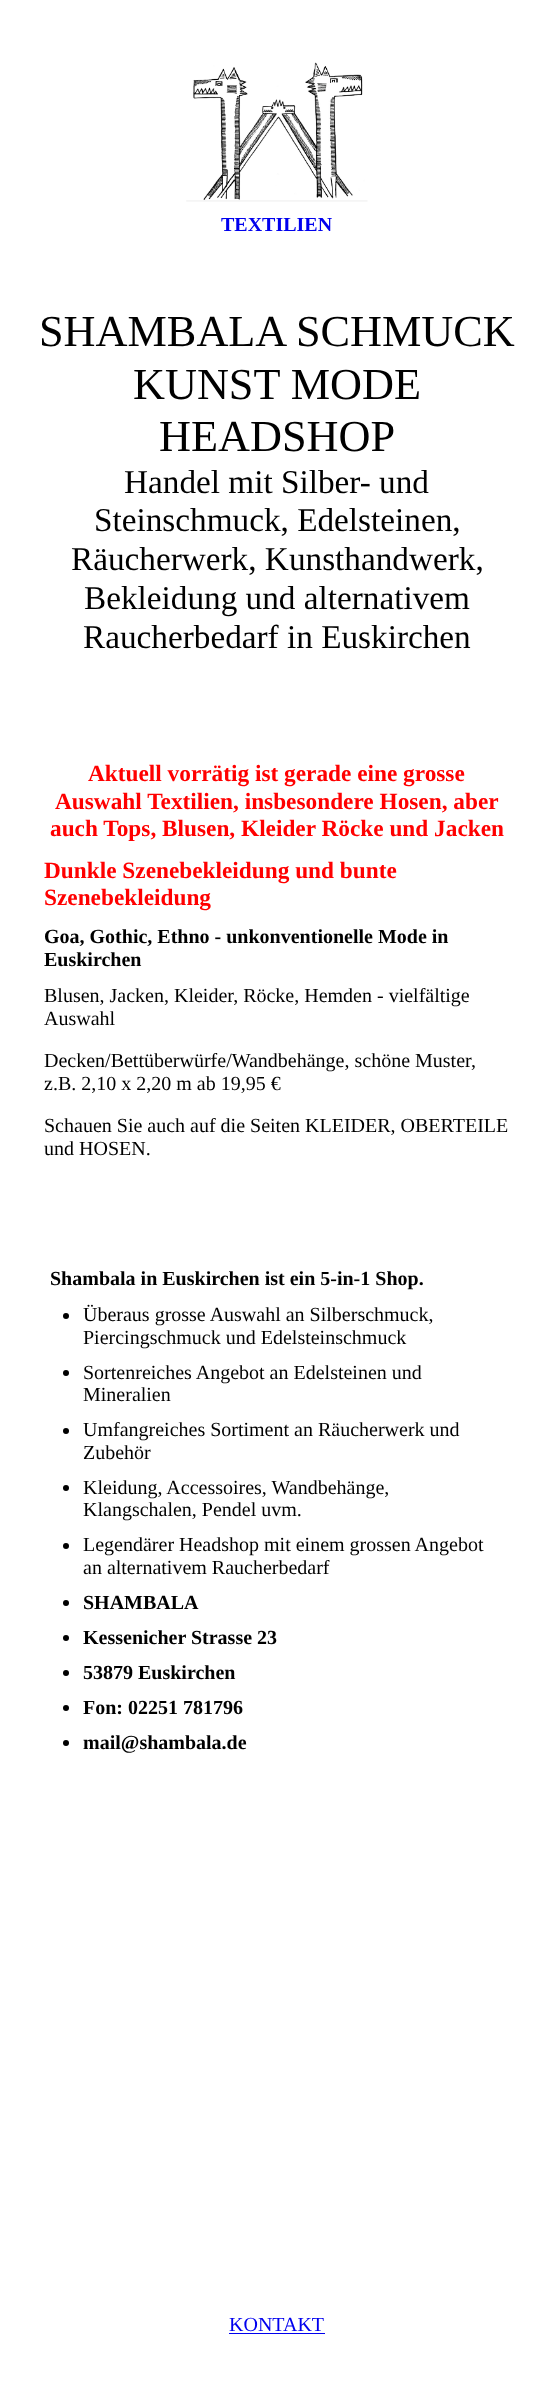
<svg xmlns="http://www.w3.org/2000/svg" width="553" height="2386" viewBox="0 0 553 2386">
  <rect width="100%" height="100%" fill="#ffffff"/>
  <image x="186" y="62" width="182" height="140" href="img1.png"/>
  <text x="221" y="231" font-family="Liberation Serif" font-size="20" font-weight="bold" fill="#0000ee">TEXTILIEN</text>
  <text x="39" y="346" font-family="Liberation Serif" font-size="44.25" fill="#000000">SHAMBALA SCHMUCK</text>
  <text x="133" y="399" font-family="Liberation Serif" font-size="44.25" fill="#000000">KUNST MODE</text>
  <text x="159" y="451" font-family="Liberation Serif" font-size="44.25" fill="#000000">HEADSHOP</text>
  <text x="124" y="493" font-family="Liberation Serif" font-size="33.25" fill="#000000">Handel mit Silber- und</text>
  <text x="94" y="531" font-family="Liberation Serif" font-size="33.25" fill="#000000">Steinschmuck, Edelsteinen,</text>
  <text x="71" y="570" font-family="Liberation Serif" font-size="33.25" fill="#000000">Räucherwerk, Kunsthandwerk,</text>
  <text x="84" y="609" font-family="Liberation Serif" font-size="33.25" fill="#000000">Bekleidung und alternativem</text>
  <text x="83" y="648" font-family="Liberation Serif" font-size="33.25" fill="#000000">Raucherbedarf in Euskirchen</text>
  <text x="88" y="781" font-family="Liberation Serif" font-size="23.3" font-weight="bold" fill="#ff0000">Aktuell vorrätig ist gerade eine grosse</text>
  <text x="55" y="809" font-family="Liberation Serif" font-size="23.3" font-weight="bold" fill="#ff0000">Auswahl Textilien, insbesondere Hosen, aber</text>
  <text x="50" y="836" font-family="Liberation Serif" font-size="23.3" font-weight="bold" fill="#ff0000">auch Tops, Blusen, Kleider Röcke und Jacken</text>
  <text x="44" y="878" font-family="Liberation Serif" font-size="23.3" font-weight="bold" fill="#ff0000">Dunkle Szenebekleidung und bunte</text>
  <text x="44" y="905" font-family="Liberation Serif" font-size="23.3" font-weight="bold" fill="#ff0000">Szenebekleidung</text>
  <text x="44" y="943" font-family="Liberation Serif" font-size="20" font-weight="bold" fill="#000000">Goa, Gothic, Ethno - unkonventionelle Mode in</text>
  <text x="44" y="966" font-family="Liberation Serif" font-size="20" font-weight="bold" fill="#000000">Euskirchen</text>
  <text x="44" y="1002" font-family="Liberation Serif" font-size="20" fill="#000000">Blusen, Jacken, Kleider, Röcke, Hemden - vielfältige</text>
  <text x="44" y="1025" font-family="Liberation Serif" font-size="20" fill="#000000">Auswahl</text>
  <text x="44" y="1067" font-family="Liberation Serif" font-size="20" fill="#000000">Decken/Bettüberwürfe/Wandbehänge, schöne Muster,</text>
  <text x="44" y="1090" font-family="Liberation Serif" font-size="20" fill="#000000">z.B. 2,10 x 2,20 m ab 19,95 €</text>
  <text x="44" y="1132" font-family="Liberation Serif" font-size="20" fill="#000000">Schauen Sie auch auf die Seiten KLEIDER, OBERTEILE</text>
  <text x="44" y="1155" font-family="Liberation Serif" font-size="20" fill="#000000">und HOSEN.</text>
  <text x="50" y="1285" font-family="Liberation Serif" font-size="20" font-weight="bold" fill="#000000">Shambala in Euskirchen ist ein 5-in-1 Shop.</text>
  <circle cx="66" cy="1316" r="3" fill="#000000"/>
  <text x="83" y="1321" font-family="Liberation Serif" font-size="20" fill="#000000">Überaus grosse Auswahl an Silberschmuck,</text>
  <text x="83" y="1344" font-family="Liberation Serif" font-size="20" fill="#000000">Piercingschmuck und Edelsteinschmuck</text>
  <circle cx="66" cy="1373" r="3" fill="#000000"/>
  <text x="83" y="1379" font-family="Liberation Serif" font-size="20" fill="#000000">Sortenreiches Angebot an Edelsteinen und</text>
  <text x="83" y="1401" font-family="Liberation Serif" font-size="20" fill="#000000">Mineralien</text>
  <circle cx="66" cy="1431" r="3" fill="#000000"/>
  <text x="83" y="1436" font-family="Liberation Serif" font-size="20" fill="#000000">Umfangreiches Sortiment an Räucherwerk und</text>
  <text x="83" y="1459" font-family="Liberation Serif" font-size="20" fill="#000000">Zubehör</text>
  <circle cx="66" cy="1488" r="3" fill="#000000"/>
  <text x="83" y="1494" font-family="Liberation Serif" font-size="20" fill="#000000">Kleidung, Accessoires, Wandbehänge,</text>
  <text x="83" y="1516" font-family="Liberation Serif" font-size="20" fill="#000000">Klangschalen, Pendel uvm.</text>
  <circle cx="66" cy="1546" r="3" fill="#000000"/>
  <text x="83" y="1551" font-family="Liberation Serif" font-size="20" fill="#000000">Legendärer Headshop mit einem grossen Angebot</text>
  <text x="83" y="1574" font-family="Liberation Serif" font-size="20" fill="#000000">an alternativem Raucherbedarf</text>
  <circle cx="66" cy="1603" r="3" fill="#000000"/>
  <text x="83" y="1609" font-family="Liberation Serif" font-size="20" font-weight="bold" fill="#000000">SHAMBALA</text>
  <circle cx="66" cy="1638" r="3" fill="#000000"/>
  <text x="83" y="1644" font-family="Liberation Serif" font-size="20" font-weight="bold" fill="#000000">Kessenicher Strasse 23</text>
  <circle cx="66" cy="1673" r="3" fill="#000000"/>
  <text x="83" y="1679" font-family="Liberation Serif" font-size="20" font-weight="bold" fill="#000000">53879 Euskirchen</text>
  <circle cx="66" cy="1708" r="3" fill="#000000"/>
  <text x="83" y="1714" font-family="Liberation Serif" font-size="20" font-weight="bold" fill="#000000">Fon: 02251 781796</text>
  <circle cx="66" cy="1743" r="3" fill="#000000"/>
  <text x="83" y="1749" font-family="Liberation Serif" font-size="20" font-weight="bold" fill="#000000">mail@shambala.de</text>
  <text x="229" y="2331" font-family="Liberation Serif" font-size="20" fill="#0000ee">KONTAKT</text>
  <rect x="229" y="2333" width="96" height="1" fill="#0000ee"/>
</svg>
